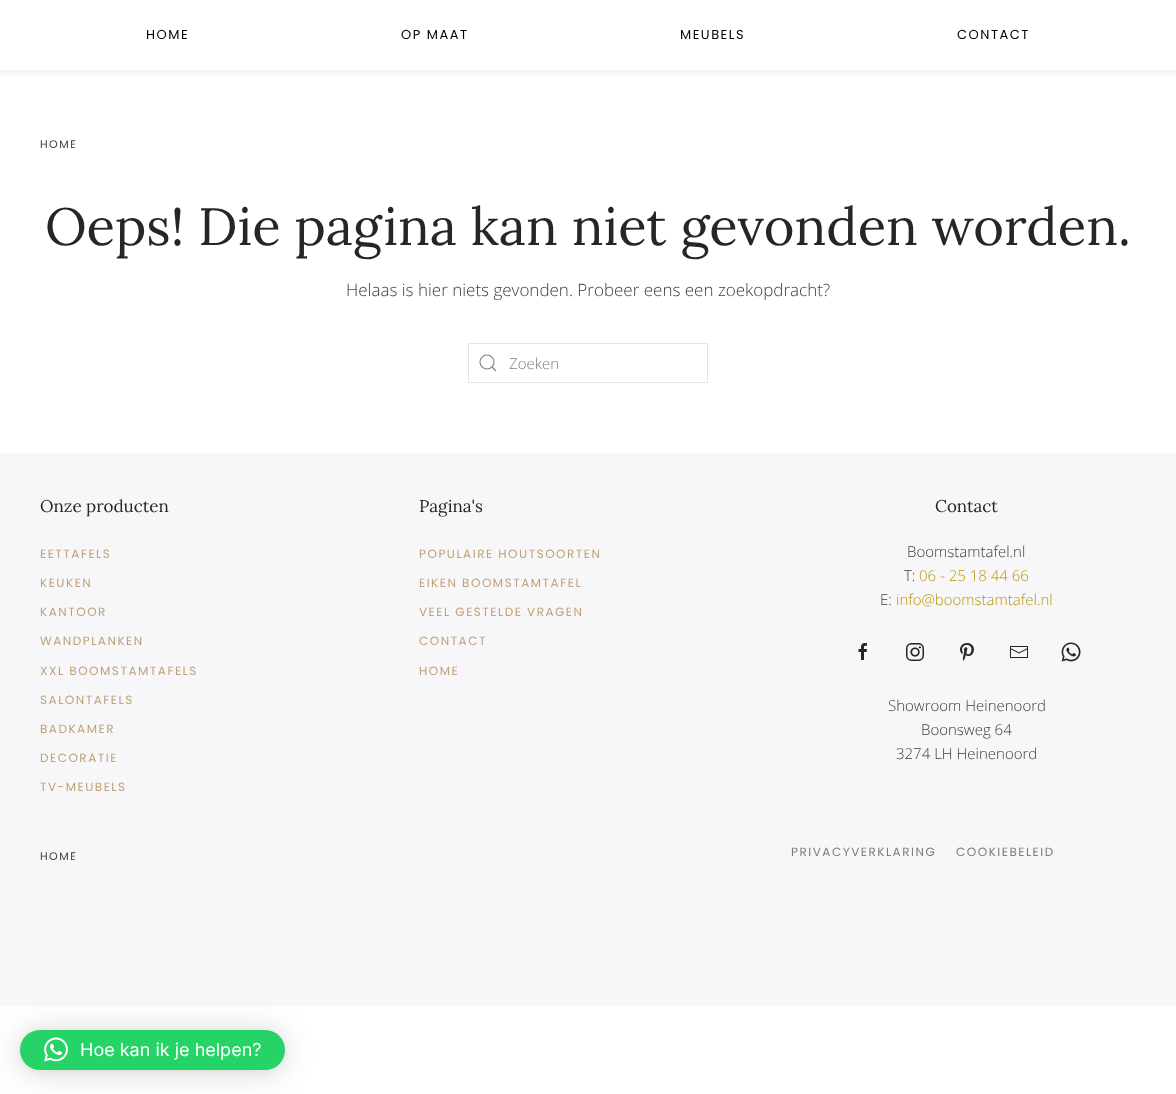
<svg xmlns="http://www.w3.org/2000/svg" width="1176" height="1094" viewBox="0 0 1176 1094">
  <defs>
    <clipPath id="clip1"><rect x="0" y="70" width="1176" height="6"/></clipPath>
    <filter id="blur1" x="-50%" y="-200%" width="200%" height="500%"><feGaussianBlur stdDeviation="5.5"/></filter>
    <filter id="blur2" x="-50%" y="-200%" width="200%" height="500%"><feGaussianBlur stdDeviation="16"/></filter>
    <filter id="blur3" x="-50%" y="-200%" width="200%" height="500%"><feGaussianBlur stdDeviation="3"/></filter>
  </defs>
  <rect width="100%" height="100%" fill="#ffffff"/>
  <g clip-path="url(#clip1)">
    <rect x="0" y="2" width="1176" height="70" fill="#000000" fill-opacity="0.09" filter="url(#blur1)"/>
  </g>
  <text x="146" y="39" font-family="Poppins" font-size="13" letter-spacing="1.5" fill="#000000">HOME</text>
  <text x="401" y="39" font-family="Poppins" font-size="13" letter-spacing="1.5" fill="#000000">OP MAAT</text>
  <text x="680" y="39" font-family="Poppins" font-size="13" letter-spacing="1.5" fill="#000000">MEUBELS</text>
  <text x="957" y="39" font-family="Poppins" font-size="13" letter-spacing="1.5" fill="#000000">CONTACT</text>
  <text x="40" y="148" font-family="Poppins" font-size="11" letter-spacing="1.5" fill="#3c3c3c">HOME</text>
  <text x="45" y="245" font-family="Lora" font-size="52.5" fill="#262626">Oeps! Die pagina kan niet gevonden worden.</text>
  <text x="346" y="296" font-family="Open Sans" font-size="17" font-weight="300" fill="#3c3c3c">Helaas is hier niets gevonden. Probeer eens een zoekopdracht?</text>
  <rect x="468.5" y="343.5" width="239" height="39" fill="none" stroke="#e5e5e5"/>
  <circle cx="487" cy="362" r="7" fill="none" stroke="#7e7e7e" stroke-width="1.1"/>
  <path d="M492 367L496 371Z" fill="none" stroke="#7e7e7e" stroke-width="1.1"/>
  <text x="509" y="369" font-family="Open Sans" font-size="15" font-weight="300" fill="#7e7e7e">Zoeken</text>
  <rect x="0" y="453" width="1176" height="553" fill="#f7f7fa"/>
  <text x="40" y="512" font-family="Lora" font-size="17" fill="#262626">Onze producten</text>
  <text x="40" y="558" font-family="Poppins" font-size="12" letter-spacing="1.5" fill="#bfa279">EETTAFELS</text>
  <text x="40" y="587" font-family="Poppins" font-size="12" letter-spacing="1.5" fill="#bfa279">KEUKEN</text>
  <text x="40" y="616" font-family="Poppins" font-size="12" letter-spacing="1.5" fill="#bfa279">KANTOOR</text>
  <text x="40" y="645" font-family="Poppins" font-size="12" letter-spacing="1.5" fill="#bfa279">WANDPLANKEN</text>
  <text x="40" y="675" font-family="Poppins" font-size="12" letter-spacing="1.5" fill="#bfa279">XXL BOOMSTAMTAFELS</text>
  <text x="40" y="704" font-family="Poppins" font-size="12" letter-spacing="1.5" fill="#bfa279">SALONTAFELS</text>
  <text x="40" y="733" font-family="Poppins" font-size="12" letter-spacing="1.5" fill="#bfa279">BADKAMER</text>
  <text x="40" y="762" font-family="Poppins" font-size="12" letter-spacing="1.5" fill="#bfa279">DECORATIE</text>
  <text x="40" y="791" font-family="Poppins" font-size="12" letter-spacing="1.5" fill="#bfa279">TV-MEUBELS</text>
  <text x="419" y="512" font-family="Lora" font-size="17" fill="#262626">Pagina's</text>
  <text x="419" y="558" font-family="Poppins" font-size="12" letter-spacing="1.5" fill="#bfa279">POPULAIRE HOUTSOORTEN</text>
  <text x="419" y="587" font-family="Poppins" font-size="12" letter-spacing="1.5" fill="#bfa279">EIKEN BOOMSTAMTAFEL</text>
  <text x="419" y="616" font-family="Poppins" font-size="12" letter-spacing="1.5" fill="#bfa279">VEEL GESTELDE VRAGEN</text>
  <text x="419" y="645" font-family="Poppins" font-size="12" letter-spacing="1.5" fill="#bfa279">CONTACT</text>
  <text x="419" y="675" font-family="Poppins" font-size="12" letter-spacing="1.5" fill="#bfa279">HOME</text>
  <text x="935" y="512" font-family="Lora" font-size="17" fill="#262626">Contact</text>
  <text x="907" y="557" font-family="Open Sans" font-size="15" font-weight="300" fill="#3c3c3c">Boomstamtafel.nl</text>
  <text x="904" y="581" font-family="Open Sans" font-size="15" font-weight="300" fill="#3c3c3c">T:</text>
  <text x="919" y="581" font-family="Open Sans" font-size="15" font-weight="300" fill="#b79708">06 - 25 18 44 66</text>
  <text x="880" y="605" font-family="Open Sans" font-size="15" font-weight="300" fill="#3c3c3c">E:</text>
  <text x="896" y="605" font-family="Open Sans" font-size="15" font-weight="300" fill="#b79708">info@boomstamtafel.nl</text>
  <image x="858" y="643" width="9" height="17" href="img1.png"/>
  <image x="906" y="643" width="18" height="18" href="img2.png"/>
  <image x="960" y="643" width="14" height="18" href="img3.png"/>
  <image x="1010" y="646" width="18" height="12" href="img4.png"/>
  <image x="1061" y="642" width="20" height="20" href="img5.png"/>
  <text x="888" y="711" font-family="Open Sans" font-size="15" font-weight="300" fill="#3c3c3c">Showroom Heinenoord</text>
  <text x="921" y="735" font-family="Open Sans" font-size="15" font-weight="300" fill="#3c3c3c">Boonsweg 64</text>
  <text x="896" y="759" font-family="Open Sans" font-size="15" font-weight="300" fill="#3c3c3c">3274 LH Heinenoord</text>
  <text x="40" y="860" font-family="Poppins" font-size="11" letter-spacing="1.5" fill="#3c3c3c">HOME</text>
  <text x="791" y="856" font-family="Poppins" font-size="12" letter-spacing="1.5" fill="#7e7e7e">PRIVACYVERKLARING</text>
  <text x="956" y="856" font-family="Poppins" font-size="12" letter-spacing="1.5" fill="#7e7e7e">COOKIEBELEID</text>
  <rect x="20" y="1032" width="265" height="40" rx="20" fill="#000000" fill-opacity="0.16" filter="url(#blur2)"/>
  <rect x="20" y="1031" width="265" height="40" rx="20" fill="#000000" fill-opacity="0.06" filter="url(#blur3)"/>
  <rect x="20" y="1030" width="265" height="40" rx="20" fill="#25d366"/>
  <image x="44" y="1037" width="24" height="25" href="img6.png"/>
  <text x="80" y="1056" font-family="Inter" font-size="18" fill="#ffffff">Hoe kan ik je helpen?</text>
</svg>
